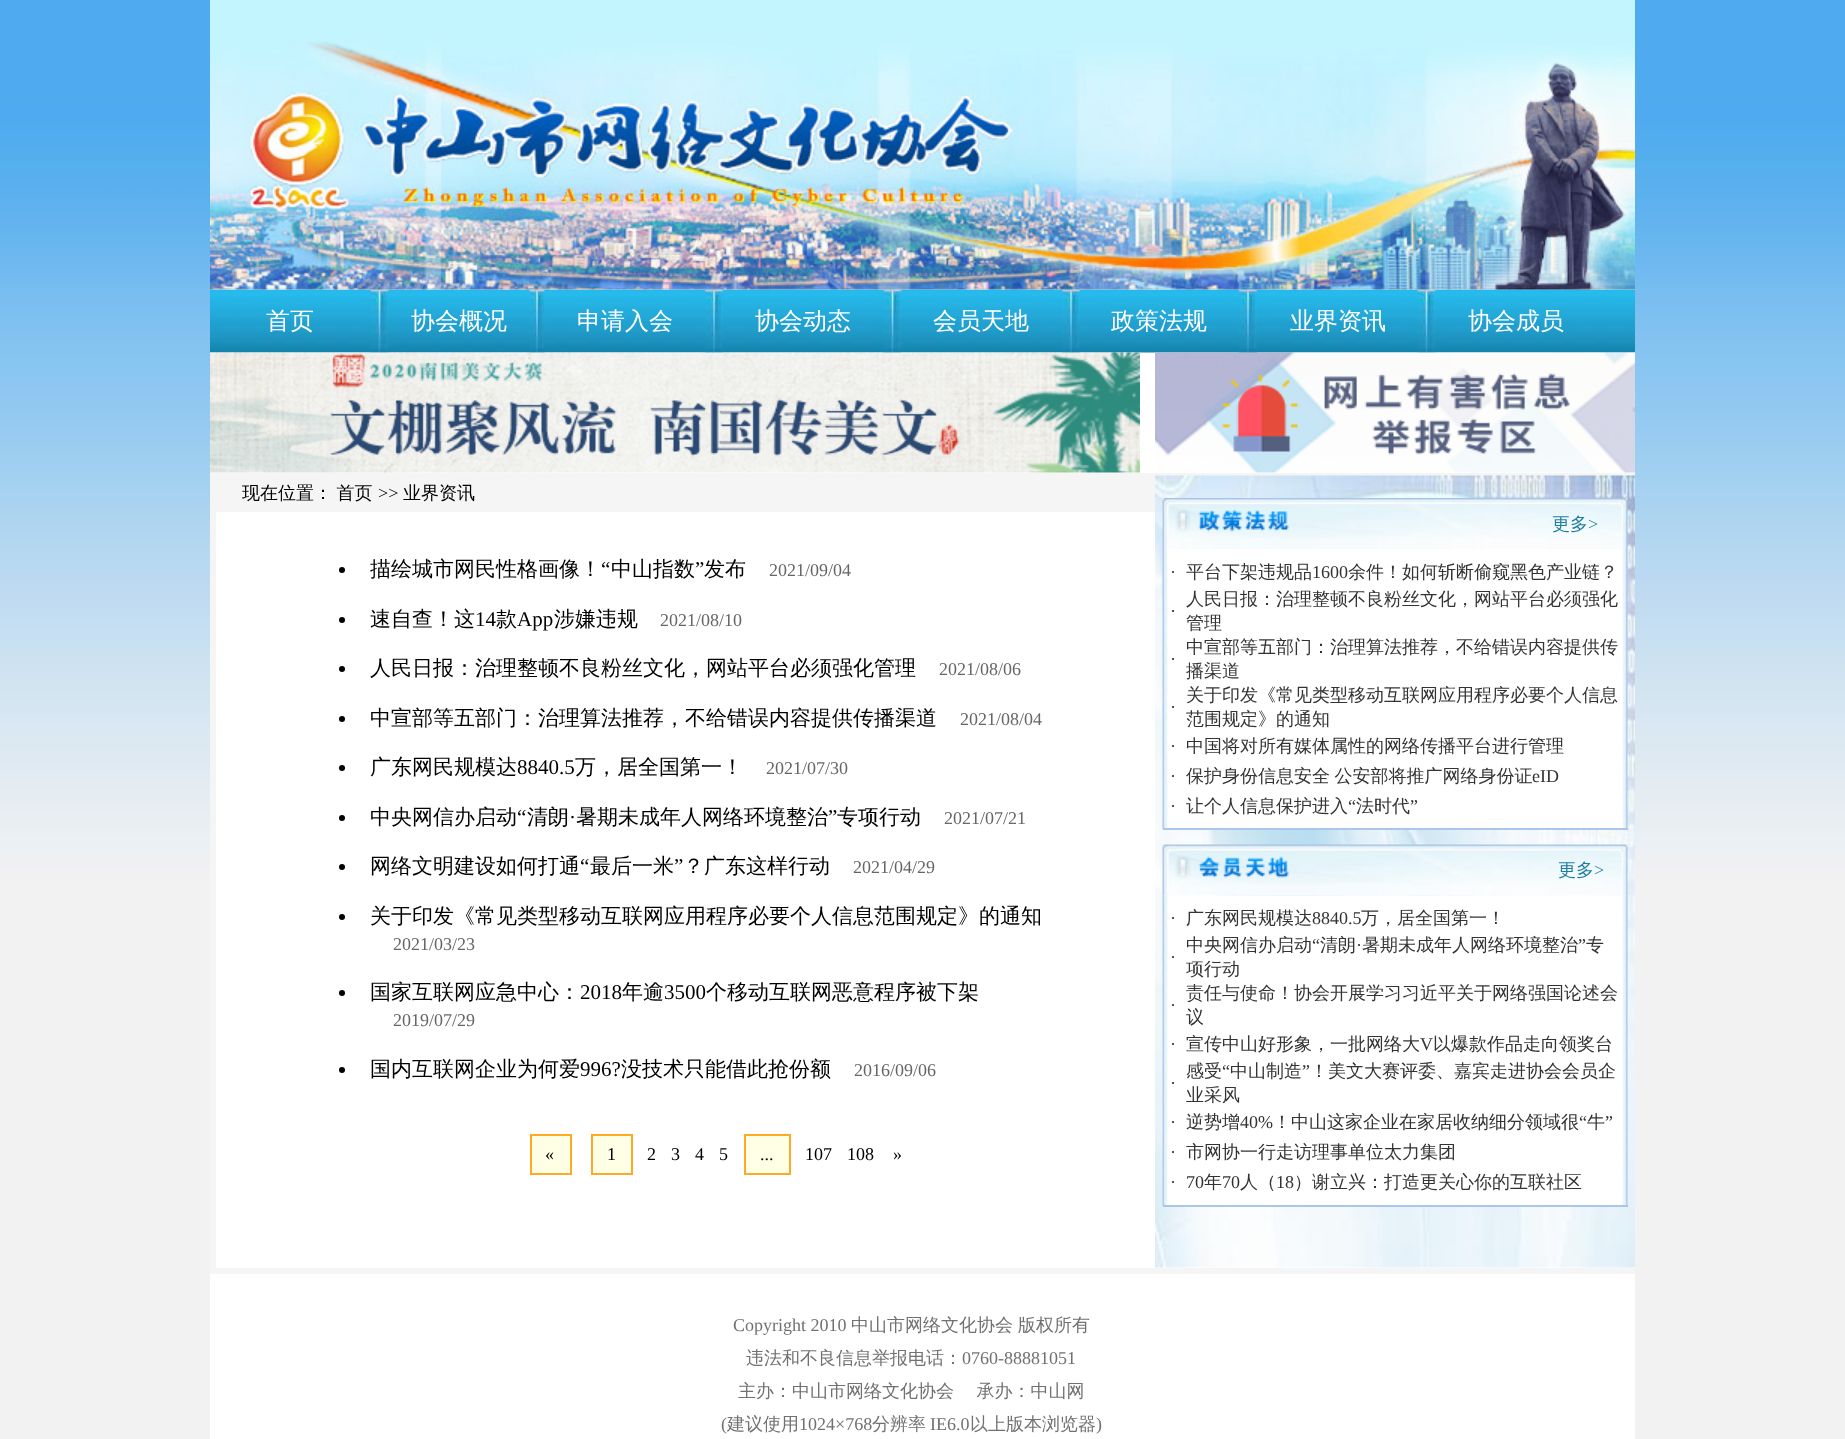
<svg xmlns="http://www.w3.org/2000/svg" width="1845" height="1439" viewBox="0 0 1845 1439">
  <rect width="100%" height="100%" fill="#ffffff"/>
  <image x="0" y="0" width="1845" height="1439" href="img1.png"/>
  <rect x="210" y="289" width="1425" height="979" fill="#ffffff"/>
  <image x="210" y="289" width="1425" height="64" href="img3.png"/>
  <image x="370" y="289" width="19" height="64" href="img4.png"/>
  <image x="529" y="289" width="16" height="64" href="img5.png"/>
  <image x="705" y="289" width="18" height="64" href="img6.png"/>
  <image x="883" y="289" width="19" height="64" href="img7.png"/>
  <image x="1062" y="289" width="18" height="64" href="img8.png"/>
  <image x="1239" y="289" width="18" height="64" href="img9.png"/>
  <image x="1417" y="289" width="19" height="64" href="img10.png"/>
  <image x="210" y="0" width="1425" height="290" href="img2.png"/>
  <text x="266" y="329" font-family="WenQuanYi Zen Hei" font-size="24" font-weight="500" fill="#ffffff">首页</text>
  <text x="411" y="329" font-family="WenQuanYi Zen Hei" font-size="24" font-weight="500" fill="#ffffff">协会概况</text>
  <text x="577" y="329" font-family="WenQuanYi Zen Hei" font-size="24" font-weight="500" fill="#ffffff">申请入会</text>
  <text x="755" y="329" font-family="WenQuanYi Zen Hei" font-size="24" font-weight="500" fill="#ffffff">协会动态</text>
  <text x="933" y="329" font-family="WenQuanYi Zen Hei" font-size="24" font-weight="500" fill="#ffffff">会员天地</text>
  <text x="1111" y="329" font-family="WenQuanYi Zen Hei" font-size="24" font-weight="500" fill="#ffffff">政策法规</text>
  <text x="1290" y="329" font-family="WenQuanYi Zen Hei" font-size="24" font-weight="500" fill="#ffffff">业界资讯</text>
  <text x="1468" y="329" font-family="WenQuanYi Zen Hei" font-size="24" font-weight="500" fill="#ffffff">协会成员</text>
  <image x="210" y="352" width="930" height="121" href="img11.png"/>
  <image x="1155" y="352" width="480" height="121" href="img12.png"/>
  <rect x="210" y="473" width="1425" height="3" fill="#f5f5f5"/>
  <rect x="210" y="476" width="6" height="792" fill="#f5f5f5"/>
  <rect x="216" y="476" width="939" height="36" fill="#f5f5f5"/>
  <text x="242" y="499" word-spacing="-1" font-family="WenQuanYi Zen Hei" font-size="18" font-weight="500" fill="#000000">现在位置： 首页</text>
  <text x="378" y="499" font-family="Liberation Serif" font-size="18" fill="#000000">&gt;&gt;</text>
  <text x="403" y="499" font-family="WenQuanYi Zen Hei" font-size="18" font-weight="500" fill="#000000">业界资讯</text>
  <circle cx="342" cy="570" r="3" fill="#000000"/>
  <text x="370" y="576" font-family="WenQuanYi Zen Hei" font-size="21" font-weight="500" fill="#000000">描绘城市网民性格画像！</text>
  <text x="601" y="576" font-family="Liberation Serif" font-size="21" fill="#000000">“</text>
  <text x="611" y="576" font-family="WenQuanYi Zen Hei" font-size="21" font-weight="500" fill="#000000">中山指数</text>
  <text x="695" y="576" font-family="Liberation Serif" font-size="21" fill="#000000">”</text>
  <text x="704" y="576" font-family="WenQuanYi Zen Hei" font-size="21" font-weight="500" fill="#000000">发布</text>
  <text x="769" y="576" font-family="Liberation Serif" font-size="18" fill="#666666">2021/09/04</text>
  <circle cx="342" cy="620" r="3" fill="#000000"/>
  <text x="370" y="626" font-family="WenQuanYi Zen Hei" font-size="21" font-weight="500" fill="#000000">速自查！这</text>
  <text x="475" y="626" font-family="Liberation Serif" font-size="21" fill="#000000">14</text>
  <text x="496" y="626" font-family="WenQuanYi Zen Hei" font-size="21" font-weight="500" fill="#000000">款</text>
  <text x="517" y="626" font-family="Liberation Serif" font-size="21" fill="#000000">App</text>
  <text x="554" y="626" font-family="WenQuanYi Zen Hei" font-size="21" font-weight="500" fill="#000000">涉嫌违规</text>
  <text x="660" y="626" font-family="Liberation Serif" font-size="18" fill="#666666">2021/08/10</text>
  <circle cx="342" cy="669" r="3" fill="#000000"/>
  <text x="370" y="675" font-family="WenQuanYi Zen Hei" font-size="21" font-weight="500" fill="#000000">人民日报：治理整顿不良粉丝文化，网站平台必须强化管理</text>
  <text x="939" y="675" font-family="Liberation Serif" font-size="18" fill="#666666">2021/08/06</text>
  <circle cx="342" cy="719" r="3" fill="#000000"/>
  <text x="370" y="725" font-family="WenQuanYi Zen Hei" font-size="21" font-weight="500" fill="#000000">中宣部等五部门：治理算法推荐，不给错误内容提供传播渠道</text>
  <text x="960" y="725" font-family="Liberation Serif" font-size="18" fill="#666666">2021/08/04</text>
  <circle cx="342" cy="768" r="3" fill="#000000"/>
  <text x="370" y="774" font-family="WenQuanYi Zen Hei" font-size="21" font-weight="500" fill="#000000">广东网民规模达</text>
  <text x="517" y="774" font-family="Liberation Serif" font-size="21" fill="#000000">8840.5</text>
  <text x="575" y="774" font-family="WenQuanYi Zen Hei" font-size="21" font-weight="500" fill="#000000">万，居全国第一！</text>
  <text x="766" y="774" font-family="Liberation Serif" font-size="18" fill="#666666">2021/07/30</text>
  <circle cx="342" cy="818" r="3" fill="#000000"/>
  <text x="370" y="824" font-family="WenQuanYi Zen Hei" font-size="21" font-weight="500" fill="#000000">中央网信办启动</text>
  <text x="517" y="824" font-family="Liberation Serif" font-size="21" fill="#000000">“</text>
  <text x="527" y="824" font-family="WenQuanYi Zen Hei" font-size="21" font-weight="500" fill="#000000">清朗</text>
  <text x="569" y="824" font-family="Liberation Serif" font-size="21" fill="#000000">·</text>
  <text x="576" y="824" font-family="WenQuanYi Zen Hei" font-size="21" font-weight="500" fill="#000000">暑期未成年人网络环境整治</text>
  <text x="828" y="824" font-family="Liberation Serif" font-size="21" fill="#000000">”</text>
  <text x="837" y="824" font-family="WenQuanYi Zen Hei" font-size="21" font-weight="500" fill="#000000">专项行动</text>
  <text x="944" y="824" font-family="Liberation Serif" font-size="18" fill="#666666">2021/07/21</text>
  <circle cx="342" cy="867" r="3" fill="#000000"/>
  <text x="370" y="873" font-family="WenQuanYi Zen Hei" font-size="21" font-weight="500" fill="#000000">网络文明建设如何打通</text>
  <text x="580" y="873" font-family="Liberation Serif" font-size="21" fill="#000000">“</text>
  <text x="590" y="873" font-family="WenQuanYi Zen Hei" font-size="21" font-weight="500" fill="#000000">最后一米</text>
  <text x="674" y="873" font-family="Liberation Serif" font-size="21" fill="#000000">”</text>
  <text x="683" y="873" font-family="WenQuanYi Zen Hei" font-size="21" font-weight="500" fill="#000000">？广东这样行动</text>
  <text x="853" y="873" font-family="Liberation Serif" font-size="18" fill="#666666">2021/04/29</text>
  <circle cx="342" cy="917" r="3" fill="#000000"/>
  <text x="370" y="923" font-family="WenQuanYi Zen Hei" font-size="21" font-weight="500" fill="#000000">关于印发《常见类型移动互联网应用程序必要个人信息范围规定》的通知</text>
  <text x="393" y="950" font-family="Liberation Serif" font-size="18" fill="#666666">2021/03/23</text>
  <circle cx="342" cy="993" r="3" fill="#000000"/>
  <text x="370" y="999" font-family="WenQuanYi Zen Hei" font-size="21" font-weight="500" fill="#000000">国家互联网应急中心：</text>
  <text x="580" y="999" font-family="Liberation Serif" font-size="21" fill="#000000">2018</text>
  <text x="622" y="999" font-family="WenQuanYi Zen Hei" font-size="21" font-weight="500" fill="#000000">年逾</text>
  <text x="664" y="999" font-family="Liberation Serif" font-size="21" fill="#000000">3500</text>
  <text x="706" y="999" font-family="WenQuanYi Zen Hei" font-size="21" font-weight="500" fill="#000000">个移动互联网恶意程序被下架</text>
  <text x="393" y="1026" font-family="Liberation Serif" font-size="18" fill="#666666">2019/07/29</text>
  <circle cx="342" cy="1070" r="3" fill="#000000"/>
  <text x="370" y="1076" font-family="WenQuanYi Zen Hei" font-size="21" font-weight="500" fill="#000000">国内互联网企业为何爱</text>
  <text x="580" y="1076" font-family="Liberation Serif" font-size="21" fill="#000000">996?</text>
  <text x="621" y="1076" font-family="WenQuanYi Zen Hei" font-size="21" font-weight="500" fill="#000000">没技术只能借此抢份额</text>
  <text x="854" y="1076" font-family="Liberation Serif" font-size="18" fill="#666666">2016/09/06</text>
  <rect x="531" y="1135" width="40" height="39" fill="#ffffe5" stroke="#ffaa25" stroke-width="2"/>
  <text x="545" y="1160" font-family="Liberation Serif" font-size="18" fill="#000000">«</text>
  <rect x="592" y="1135" width="40" height="39" fill="#ffffe5" stroke="#ffaa25" stroke-width="2"/>
  <text x="607" y="1160" font-family="Liberation Serif" font-size="18" fill="#000000">1</text>
  <text x="647" y="1160" font-family="Liberation Serif" font-size="18" fill="#000000">2</text>
  <text x="671" y="1160" font-family="Liberation Serif" font-size="18" fill="#000000">3</text>
  <text x="695" y="1160" font-family="Liberation Serif" font-size="18" fill="#000000">4</text>
  <text x="719" y="1160" font-family="Liberation Serif" font-size="18" fill="#000000">5</text>
  <rect x="745" y="1135" width="45" height="39" fill="#ffffe5" stroke="#ffaa25" stroke-width="2"/>
  <text x="760" y="1160" font-family="Liberation Serif" font-size="18" fill="#000000">...</text>
  <text x="805" y="1160" font-family="Liberation Serif" font-size="18" fill="#000000">107</text>
  <text x="847" y="1160" font-family="Liberation Serif" font-size="18" fill="#000000">108</text>
  <text x="893" y="1160" font-family="Liberation Serif" font-size="18" fill="#000000">»</text>
  <image x="1155" y="475" width="480" height="793" href="img13.png"/>
  <image x="1162" y="498" width="466" height="51" href="img14.png"/>
  <text x="1552" y="530" font-family="WenQuanYi Zen Hei" font-size="18" font-weight="500" fill="#1f7d9f">更多</text>
  <text x="1588" y="530" font-family="Liberation Serif" font-size="18" fill="#1f7d9f">&gt;</text>
  <image x="1162" y="549" width="466" height="281" href="img15.png"/>
  <rect x="1163" y="828" width="465" height="2" fill="#aac6ec"/>
  <text x="1170" y="578" font-family="Liberation Serif" font-size="18" fill="#333333">·</text>
  <text x="1186" y="578" font-family="WenQuanYi Zen Hei" font-size="18" font-weight="500" fill="#333333">平台下架违规品</text>
  <text x="1312" y="578" font-family="Liberation Serif" font-size="18" fill="#333333">1600</text>
  <text x="1348" y="578" font-family="WenQuanYi Zen Hei" font-size="18" font-weight="500" fill="#333333">余件！如何斩断偷窥黑色产业链？</text>
  <text x="1170" y="617" font-family="Liberation Serif" font-size="18" fill="#333333">·</text>
  <text x="1186" y="605" font-family="WenQuanYi Zen Hei" font-size="18" font-weight="500" fill="#333333">人民日报：治理整顿不良粉丝文化，网站平台必须强化</text>
  <text x="1186" y="629" font-family="WenQuanYi Zen Hei" font-size="18" font-weight="500" fill="#333333">管理</text>
  <text x="1170" y="665" font-family="Liberation Serif" font-size="18" fill="#333333">·</text>
  <text x="1186" y="653" font-family="WenQuanYi Zen Hei" font-size="18" font-weight="500" fill="#333333">中宣部等五部门：治理算法推荐，不给错误内容提供传</text>
  <text x="1186" y="677" font-family="WenQuanYi Zen Hei" font-size="18" font-weight="500" fill="#333333">播渠道</text>
  <text x="1170" y="713" font-family="Liberation Serif" font-size="18" fill="#333333">·</text>
  <text x="1186" y="701" font-family="WenQuanYi Zen Hei" font-size="18" font-weight="500" fill="#333333">关于印发《常见类型移动互联网应用程序必要个人信息</text>
  <text x="1186" y="725" font-family="WenQuanYi Zen Hei" font-size="18" font-weight="500" fill="#333333">范围规定》的通知</text>
  <text x="1170" y="752" font-family="Liberation Serif" font-size="18" fill="#333333">·</text>
  <text x="1186" y="752" font-family="WenQuanYi Zen Hei" font-size="18" font-weight="500" fill="#333333">中国将对所有媒体属性的网络传播平台进行管理</text>
  <text x="1170" y="782" font-family="Liberation Serif" font-size="18" fill="#333333">·</text>
  <text x="1186" y="782" word-spacing="-1" font-family="WenQuanYi Zen Hei" font-size="18" font-weight="500" fill="#333333">保护身份信息安全 公安部将推广网络身份证</text>
  <text x="1532" y="782" font-family="Liberation Serif" font-size="18" fill="#333333">eID</text>
  <text x="1170" y="812" font-family="Liberation Serif" font-size="18" fill="#333333">·</text>
  <text x="1186" y="812" font-family="WenQuanYi Zen Hei" font-size="18" font-weight="500" fill="#333333">让个人信息保护进入</text>
  <text x="1348" y="812" font-family="Liberation Serif" font-size="18" fill="#333333">“</text>
  <text x="1356" y="812" font-family="WenQuanYi Zen Hei" font-size="18" font-weight="500" fill="#333333">法时代</text>
  <text x="1410" y="812" font-family="Liberation Serif" font-size="18" fill="#333333">”</text>
  <image x="1162" y="844" width="466" height="52" href="img16.png"/>
  <text x="1558" y="876" font-family="WenQuanYi Zen Hei" font-size="18" font-weight="500" fill="#1f7d9f">更多</text>
  <text x="1594" y="876" font-family="Liberation Serif" font-size="18" fill="#1f7d9f">&gt;</text>
  <image x="1162" y="895" width="466" height="311" href="img17.png"/>
  <rect x="1163" y="1205" width="465" height="2" fill="#aac6ec"/>
  <text x="1170" y="924" font-family="Liberation Serif" font-size="18" fill="#333333">·</text>
  <text x="1186" y="924" font-family="WenQuanYi Zen Hei" font-size="18" font-weight="500" fill="#333333">广东网民规模达</text>
  <text x="1312" y="924" font-family="Liberation Serif" font-size="18" fill="#333333">8840.5</text>
  <text x="1361" y="924" font-family="WenQuanYi Zen Hei" font-size="18" font-weight="500" fill="#333333">万，居全国第一！</text>
  <text x="1170" y="963" font-family="Liberation Serif" font-size="18" fill="#333333">·</text>
  <text x="1186" y="951" font-family="WenQuanYi Zen Hei" font-size="18" font-weight="500" fill="#333333">中央网信办启动</text>
  <text x="1312" y="951" font-family="Liberation Serif" font-size="18" fill="#333333">“</text>
  <text x="1320" y="951" font-family="WenQuanYi Zen Hei" font-size="18" font-weight="500" fill="#333333">清朗</text>
  <text x="1362" y="951" font-family="WenQuanYi Zen Hei" font-size="18" font-weight="500" fill="#333333">暑期未成年人网络环境整治</text>
  <text x="1578" y="951" font-family="Liberation Serif" font-size="18" fill="#333333">”</text>
  <text x="1586" y="951" font-family="WenQuanYi Zen Hei" font-size="18" font-weight="500" fill="#333333">专</text>
  <text x="1356" y="951" font-family="Liberation Serif" font-size="18" fill="#333333">·</text>
  <text x="1186" y="975" font-family="WenQuanYi Zen Hei" font-size="18" font-weight="500" fill="#333333">项行动</text>
  <text x="1170" y="1011" font-family="Liberation Serif" font-size="18" fill="#333333">·</text>
  <text x="1186" y="999" font-family="WenQuanYi Zen Hei" font-size="18" font-weight="500" fill="#333333">责任与使命！协会开展学习习近平关于网络强国论述会</text>
  <text x="1186" y="1023" font-family="WenQuanYi Zen Hei" font-size="18" font-weight="500" fill="#333333">议</text>
  <text x="1170" y="1050" font-family="Liberation Serif" font-size="18" fill="#333333">·</text>
  <text x="1186" y="1050" font-family="WenQuanYi Zen Hei" font-size="18" font-weight="500" fill="#333333">宣传中山好形象，一批网络大</text>
  <text x="1420" y="1050" font-family="Liberation Serif" font-size="18" fill="#333333">V</text>
  <text x="1433" y="1050" font-family="WenQuanYi Zen Hei" font-size="18" font-weight="500" fill="#333333">以爆款作品走向领奖台</text>
  <text x="1170" y="1089" font-family="Liberation Serif" font-size="18" fill="#333333">·</text>
  <text x="1186" y="1077" font-family="WenQuanYi Zen Hei" font-size="18" font-weight="500" fill="#333333">感受</text>
  <text x="1222" y="1077" font-family="Liberation Serif" font-size="18" fill="#333333">“</text>
  <text x="1230" y="1077" font-family="WenQuanYi Zen Hei" font-size="18" font-weight="500" fill="#333333">中山制造</text>
  <text x="1302" y="1077" font-family="Liberation Serif" font-size="18" fill="#333333">”</text>
  <text x="1310" y="1077" font-family="WenQuanYi Zen Hei" font-size="18" font-weight="500" fill="#333333">！美文大赛评委、嘉宾走进协会会员企</text>
  <text x="1186" y="1101" font-family="WenQuanYi Zen Hei" font-size="18" font-weight="500" fill="#333333">业采风</text>
  <text x="1170" y="1128" font-family="Liberation Serif" font-size="18" fill="#333333">·</text>
  <text x="1186" y="1128" font-family="WenQuanYi Zen Hei" font-size="18" font-weight="500" fill="#333333">逆势增</text>
  <text x="1240" y="1128" font-family="Liberation Serif" font-size="18" fill="#333333">40%</text>
  <text x="1273" y="1128" font-family="WenQuanYi Zen Hei" font-size="18" font-weight="500" fill="#333333">！中山这家企业在家居收纳细分领域很</text>
  <text x="1579" y="1128" font-family="Liberation Serif" font-size="18" fill="#333333">“</text>
  <text x="1587" y="1128" font-family="WenQuanYi Zen Hei" font-size="18" font-weight="500" fill="#333333">牛</text>
  <text x="1605" y="1128" font-family="Liberation Serif" font-size="18" fill="#333333">”</text>
  <text x="1170" y="1158" font-family="Liberation Serif" font-size="18" fill="#333333">·</text>
  <text x="1186" y="1158" font-family="WenQuanYi Zen Hei" font-size="18" font-weight="500" fill="#333333">市网协一行走访理事单位太力集团</text>
  <text x="1170" y="1188" font-family="Liberation Serif" font-size="18" fill="#333333">·</text>
  <text x="1186" y="1188" font-family="Liberation Serif" font-size="18" fill="#333333">70</text>
  <text x="1204" y="1188" font-family="WenQuanYi Zen Hei" font-size="18" font-weight="500" fill="#333333">年</text>
  <text x="1222" y="1188" font-family="Liberation Serif" font-size="18" fill="#333333">70</text>
  <text x="1240" y="1188" font-family="WenQuanYi Zen Hei" font-size="18" font-weight="500" fill="#333333">人（</text>
  <text x="1276" y="1188" font-family="Liberation Serif" font-size="18" fill="#333333">18</text>
  <text x="1294" y="1188" font-family="WenQuanYi Zen Hei" font-size="18" font-weight="500" fill="#333333">）谢立兴：打造更关心你的互联社区</text>
  <rect x="210" y="1268" width="1425" height="6" fill="#f5f5f5"/>
  <rect x="210" y="1274" width="1425" height="165" fill="#ffffff"/>
  <text x="733" y="1331" font-family="Liberation Serif" font-size="18" fill="#727171">Copyright 2010</text>
  <text x="851" y="1331" font-family="WenQuanYi Zen Hei" font-size="18" font-weight="500" fill="#727171">中山市网络文化协会</text>
  <text x="1018" y="1331" font-family="WenQuanYi Zen Hei" font-size="18" font-weight="500" fill="#727171">版权所有</text>
  <text x="746" y="1364" font-family="WenQuanYi Zen Hei" font-size="18" font-weight="500" fill="#727171">违法和不良信息举报电话：</text>
  <text x="962" y="1364" font-family="Liberation Serif" font-size="18" fill="#727171">0760-88881051</text>
  <text x="738" y="1397" word-spacing="-1" font-family="WenQuanYi Zen Hei" font-size="18" font-weight="500" fill="#727171">主办：中山市网络文化协会 　承办：中山网</text>
  <text x="721" y="1430" font-family="Liberation Serif" font-size="18" fill="#727171">(</text>
  <text x="727" y="1430" font-family="WenQuanYi Zen Hei" font-size="18" font-weight="500" fill="#727171">建议使用</text>
  <text x="799" y="1430" font-family="Liberation Serif" font-size="18" fill="#727171">1024×768</text>
  <text x="872" y="1430" font-family="WenQuanYi Zen Hei" font-size="18" font-weight="500" fill="#727171">分辨率</text>
  <text x="930" y="1430" font-family="Liberation Serif" font-size="18" fill="#727171">IE6.0</text>
  <text x="970" y="1430" font-family="WenQuanYi Zen Hei" font-size="18" font-weight="500" fill="#727171">以上版本浏览器</text>
  <text x="1096" y="1430" font-family="Liberation Serif" font-size="18" fill="#727171">)</text>
</svg>
